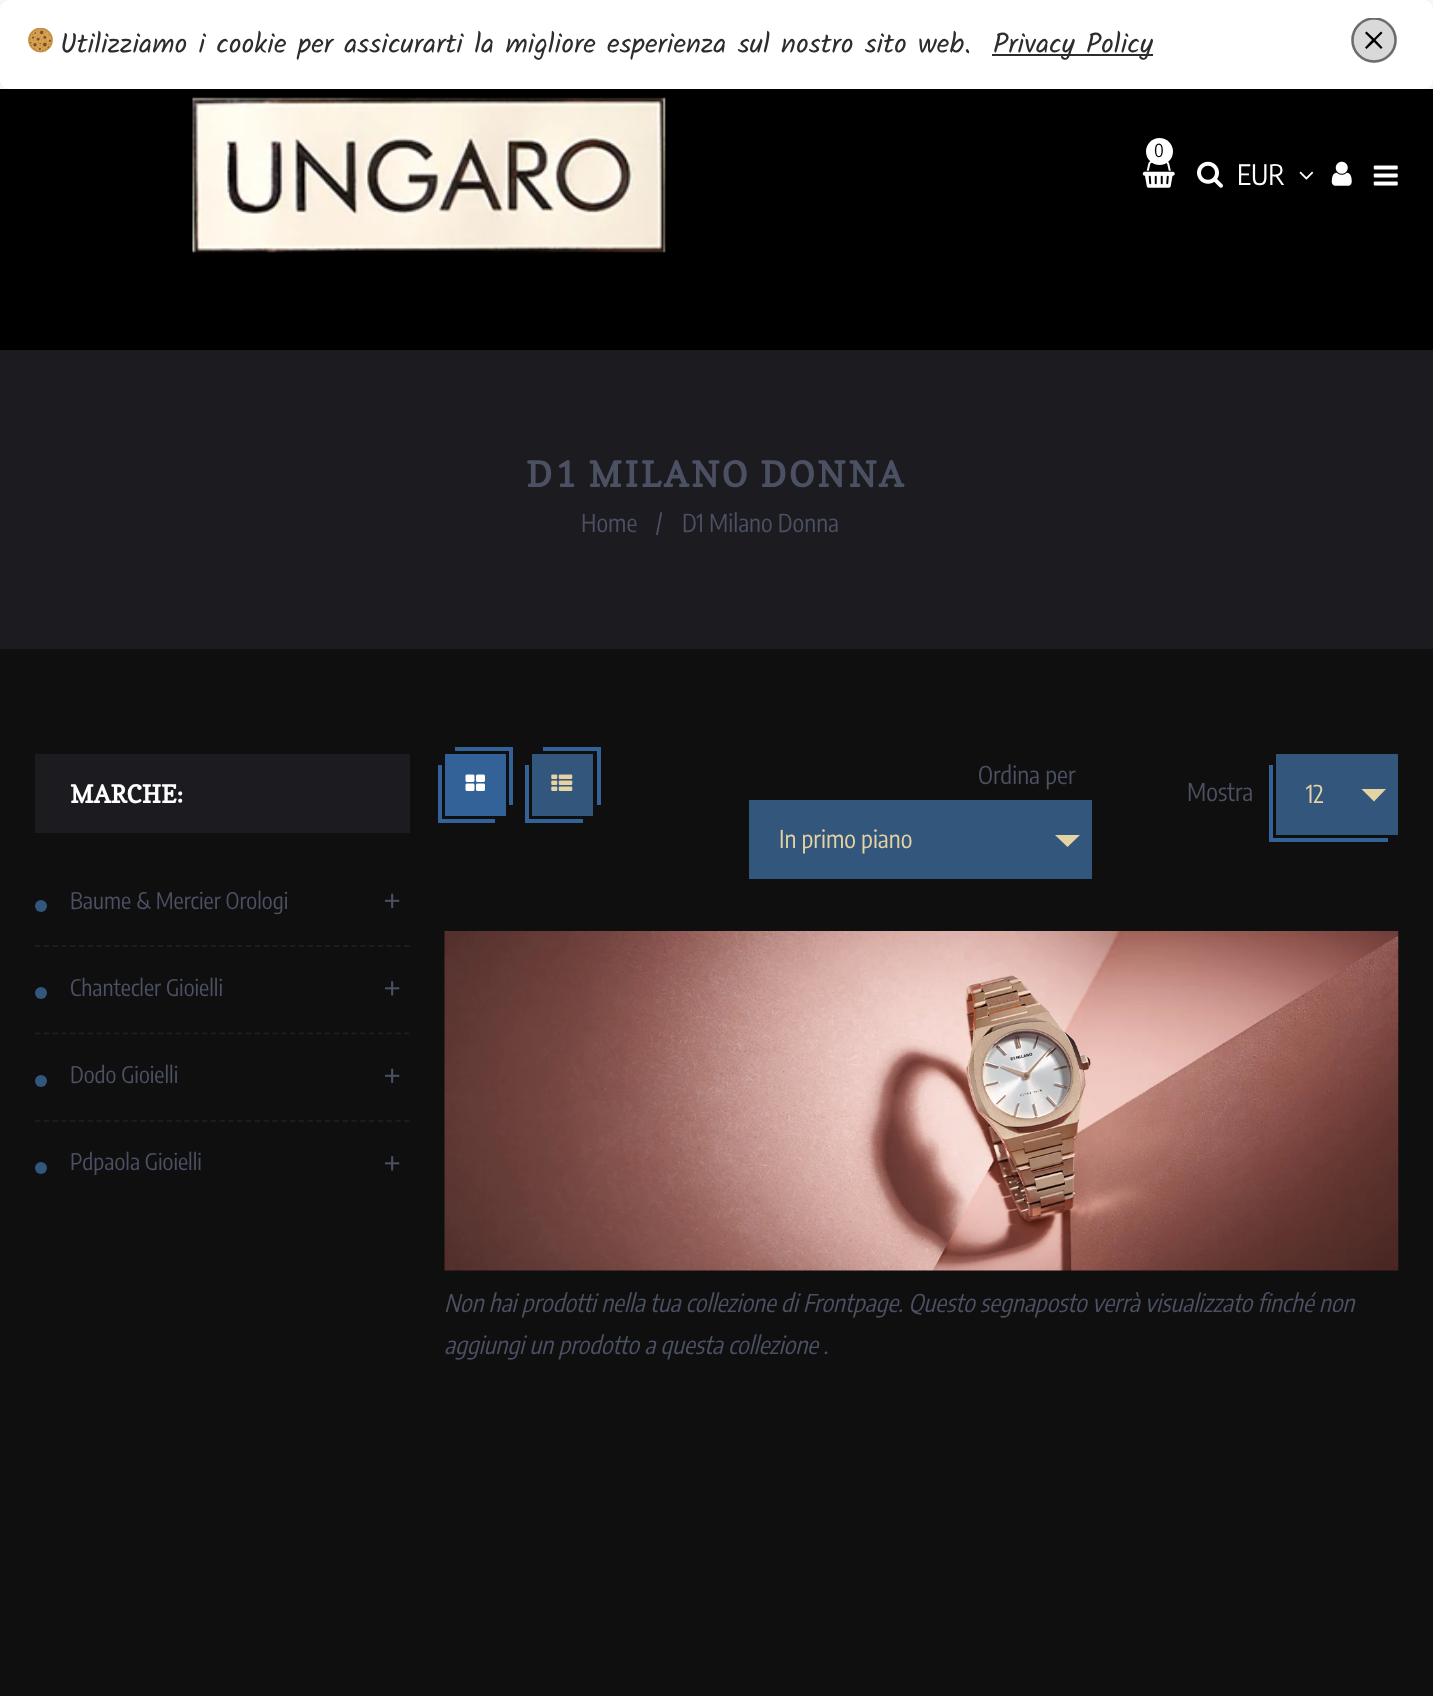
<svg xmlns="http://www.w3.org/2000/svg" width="1433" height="1696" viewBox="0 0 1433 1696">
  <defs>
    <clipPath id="clip1"><path d="M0 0H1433V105H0ZM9 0H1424C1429 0 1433 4 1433 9V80C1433 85 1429 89 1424 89H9C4 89 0 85 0 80V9C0 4 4 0 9 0Z" clip-rule="evenodd"/></clipPath>
    <filter id="blur1" x="-50%" y="-200%" width="200%" height="500%"><feGaussianBlur stdDeviation="5"/></filter>
    <clipPath id="clip2"><rect x="1342" y="18" width="63" height="45"/></clipPath>
  </defs>
  <rect width="100%" height="100%" fill="#0f0f0f"/>
  <rect x="0" y="0" width="1433" height="89" fill="#ffffff"/>
  <rect x="0" y="89" width="1433" height="261" fill="#000000"/>
  <image x="192" y="97" width="474" height="156" href="img2.png"/>
  <g clip-path="url(#clip1)">
    <rect x="0" y="0" width="1433" height="89" rx="9" fill="#000000" fill-opacity="0.12" filter="url(#blur1)"/>
  </g>
  <image x="28" y="28" width="25" height="25" href="img1.png"/>
  <text x="60" y="53" font-family="Kalam" font-size="28" fill="#2d2d2d">Utilizziamo i cookie per assicurarti la migliore esperienza sul nostro sito web.</text>
  <rect x="992" y="54" width="161" height="2" fill="#2d2d2d"/>
  <text x="993" y="53" font-family="Kalam" font-size="28" fill="#2d2d2d">Privacy Policy</text>
  <g clip-path="url(#clip2)">
    <circle cx="1374" cy="40" r="23" fill="#d9d9d9"/>
    <circle cx="1374" cy="40" r="21.5" fill="none" stroke="#000000" stroke-opacity="0.5" stroke-width="2.5"/>
  </g>
  <path d="M1382.5 33L1381 31.5L1374 38.5L1366.5 31.5L1365 33L1372 40L1365 47.5L1366.5 49L1374 42L1381 49L1382.5 47.5L1375.5 40Z" fill="#000000"/>
  <image x="1142" y="161" width="33" height="27" href="img3.png"/>
  <circle cx="1159.5" cy="151.5" r="13.5" fill="#ffffff"/>
  <text x="1154" y="157" font-family="Encode Sans Condensed" font-size="18" fill="#000000">0</text>
  <image x="1197" y="161" width="26" height="27" href="img4.png"/>
  <text x="1237" y="185" font-family="Encode Sans Condensed" font-size="28" fill="#ffffff">EUR</text>
  <image x="1299" y="171" width="15" height="9" href="img5.png"/>
  <image x="1331" y="161" width="21" height="25" href="img6.png"/>
  <image x="1373" y="165" width="25" height="21" href="img7.png"/>
  <rect x="0" y="350" width="1433" height="299" fill="#1c1b20"/>
  <text x="526" y="487" font-family="Copse" font-size="35" font-weight="bold" letter-spacing="2.75" fill="#4b5063">D1 MILANO DONNA</text>
  <text x="581" y="532" font-family="Encode Sans Condensed" font-size="24.5" fill="#4b5063">Home</text>
  <text x="656" y="532" font-family="Encode Sans Condensed" font-size="24.5" fill="#4b5063">/</text>
  <text x="682" y="532" font-family="Encode Sans Condensed" font-size="24.5" fill="#4b5063">D1 Milano Donna</text>
  <rect x="35" y="754" width="375" height="79" fill="#1c1b20"/>
  <text x="70" y="803" font-family="Copse" font-size="24.5" font-weight="bold" fill="#ffffff">MARCHE:</text>
  <path d="M35 946H409.5" fill="none" stroke="#1c1b20" stroke-width="1.8" stroke-dasharray="5.25 3.54"/>
  <circle cx="41" cy="906" r="6" fill="#33567d"/>
  <text x="70" y="909" font-family="Encode Sans Condensed" font-size="22.75" fill="#4b5063">Baume &amp; Mercier Orologi</text>
  <image x="385" y="893" width="15" height="15" href="img8.png"/>
  <path d="M35 1033.5H409.5" fill="none" stroke="#1c1b20" stroke-width="1.8" stroke-dasharray="5.25 3.54"/>
  <circle cx="41" cy="993" r="6" fill="#33567d"/>
  <text x="70" y="996" font-family="Encode Sans Condensed" font-size="22.75" fill="#4b5063">Chantecler Gioielli</text>
  <image x="385" y="981" width="15" height="15" href="img9.png"/>
  <path d="M35 1121H409.5" fill="none" stroke="#1c1b20" stroke-width="1.8" stroke-dasharray="5.25 3.54"/>
  <circle cx="41" cy="1081" r="6" fill="#33567d"/>
  <text x="70" y="1083" font-family="Encode Sans Condensed" font-size="22.75" fill="#4b5063">Dodo Gioielli</text>
  <image x="385" y="1068" width="15" height="15" href="img8.png"/>
  <circle cx="41" cy="1168" r="6" fill="#33567d"/>
  <text x="70" y="1170" font-family="Encode Sans Condensed" font-size="22.75" fill="#4b5063">Pdpaola Gioielli</text>
  <image x="385" y="1156" width="15" height="15" href="img9.png"/>
  <rect x="455" y="747" width="58" height="4" fill="#326298"/>
  <rect x="509" y="747" width="4" height="58" fill="#326298"/>
  <rect x="445" y="754" width="61" height="62" fill="#326298"/>
  <image x="465" y="774" width="20" height="17" href="img10.png"/>
  <rect x="438" y="819" width="57" height="4" fill="#326298"/>
  <rect x="438" y="765" width="4" height="58" fill="#326298"/>
  <rect x="532" y="754" width="61" height="62" fill="#33567d"/>
  <rect x="543" y="747" width="57" height="4" fill="#326298"/>
  <rect x="597" y="747" width="4" height="58" fill="#326298"/>
  <rect x="525" y="819" width="58" height="4" fill="#326298"/>
  <rect x="525" y="765" width="4" height="58" fill="#326298"/>
  <image x="551" y="774" width="22" height="17" href="img11.png"/>
  <text x="978" y="784" font-family="Encode Sans Condensed" font-size="24.5" fill="#4b5063">Ordina per</text>
  <rect x="749" y="800" width="343" height="79" fill="#33567d"/>
  <text x="779" y="848" font-family="Encode Sans Condensed" font-size="24.5" fill="#e6d3a3">In primo piano</text>
  <path d="M1055 835H1080L1067.5 847Z" fill="#e6d3a3"/>
  <text x="1187" y="801" font-family="Encode Sans Condensed" font-size="24.5" fill="#4b5063">Mostra</text>
  <rect x="1276" y="754" width="122" height="81" fill="#33567d"/>
  <rect x="1269" y="838" width="119" height="4" fill="#326298"/>
  <rect x="1269" y="765" width="4" height="77" fill="#326298"/>
  <text x="1306" y="803" font-family="Encode Sans Condensed" font-size="24.5" fill="#e6d3a3">12</text>
  <path d="M1361.5 789H1386L1374 801.5Z" fill="#e6d3a3"/>
  <image x="444" y="931" width="955" height="340" href="img12.png"/>
  <text x="444" y="1312" font-family="Encode Sans Condensed" font-size="24.5" font-style="italic" fill="#4b5063">Non hai prodotti nella tua collezione di Frontpage. Questo segnaposto verrà visualizzato finché non</text>
  <text x="444" y="1354" font-family="Encode Sans Condensed" font-size="24.5" font-style="italic" fill="#4b5063">aggiungi un prodotto a questa collezione .</text>
</svg>
